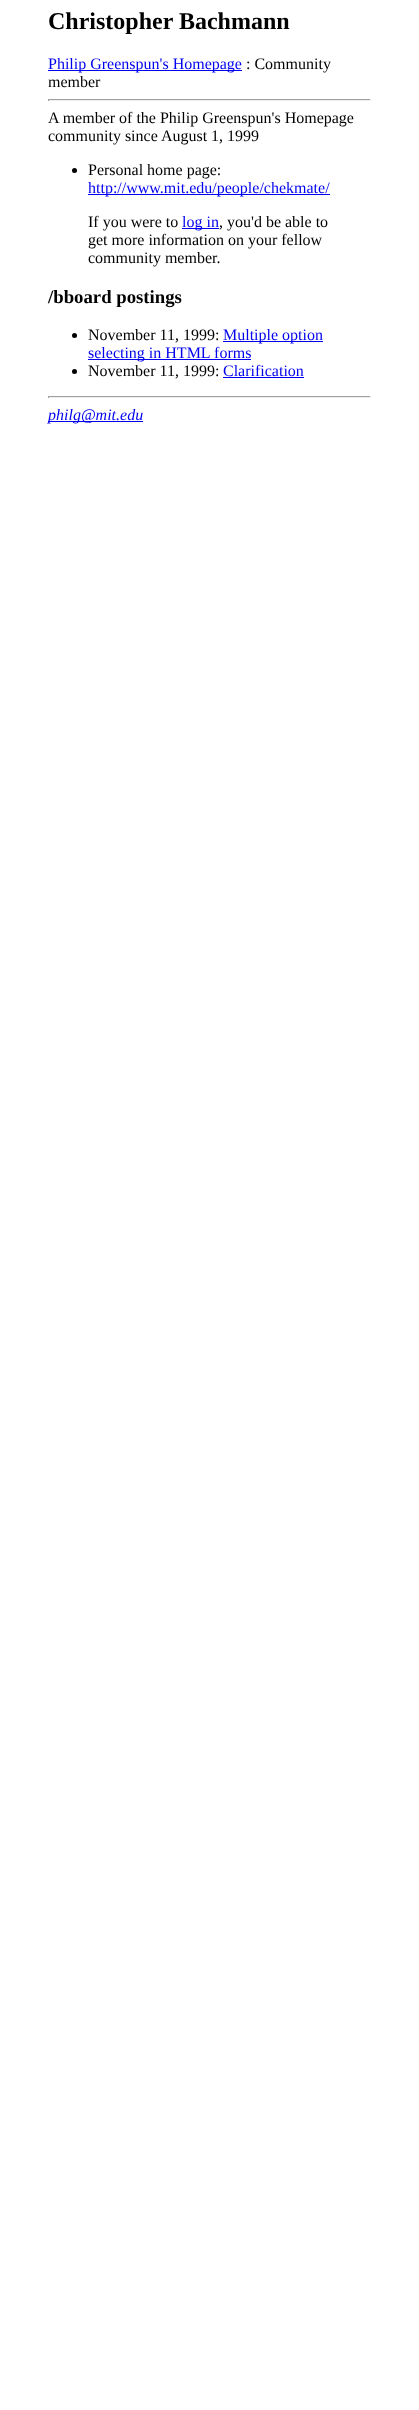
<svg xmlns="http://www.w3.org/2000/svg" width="419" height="2410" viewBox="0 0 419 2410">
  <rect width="100%" height="100%" fill="#ffffff"/>
  <text x="48" y="29" font-family="Liberation Serif" font-size="24" font-weight="bold" fill="#000000">Christopher Bachmann</text>
  <rect x="48" y="70" width="194" height="1" fill="#0000ee"/>
  <text x="48" y="69" font-family="Liberation Serif" font-size="16" fill="#0000ee">Philip Greenspun's Homepage</text>
  <text x="246" y="69" font-family="Liberation Serif" font-size="16" fill="#000000">: Community</text>
  <text x="48" y="87" font-family="Liberation Serif" font-size="16" fill="#000000">member</text>
  <rect x="48" y="99" width="323" height="1" fill="#9f9f9f"/>
  <rect x="370" y="99" width="1" height="2" fill="#eeeeee"/>
  <rect x="48" y="100" width="323" height="1" fill="#eeeeee"/>
  <rect x="48" y="99" width="1" height="2" fill="#9f9f9f"/>
  <text x="48" y="123" font-family="Liberation Serif" font-size="16" fill="#000000">A member of the Philip Greenspun's Homepage</text>
  <text x="48" y="141" font-family="Liberation Serif" font-size="16" fill="#000000">community since August 1, 1999</text>
  <circle cx="74.5" cy="170.5" r="2.5" fill="#000000"/>
  <text x="88" y="175" font-family="Liberation Serif" font-size="16" fill="#000000">Personal home page:</text>
  <rect x="88" y="194" width="242" height="1" fill="#0000ee"/>
  <text x="88" y="193" font-family="Liberation Serif" font-size="16" fill="#0000ee">http://www.mit.edu/people/chekmate/</text>
  <text x="88" y="227" font-family="Liberation Serif" font-size="16" fill="#000000">If you were to</text>
  <rect x="182" y="228" width="37" height="1" fill="#0000ee"/>
  <text x="182" y="227" font-family="Liberation Serif" font-size="16" fill="#0000ee">log in</text>
  <text x="219" y="227" font-family="Liberation Serif" font-size="16" fill="#000000">, you'd be able to</text>
  <text x="88" y="245" font-family="Liberation Serif" font-size="16" fill="#000000">get more information on your fellow</text>
  <text x="88" y="263" font-family="Liberation Serif" font-size="16" fill="#000000">community member.</text>
  <text x="48" y="303" font-family="Liberation Serif" font-size="18.75" font-weight="bold" fill="#000000">/bboard postings</text>
  <circle cx="74.5" cy="335.5" r="2.5" fill="#000000"/>
  <text x="88" y="340" font-family="Liberation Serif" font-size="16" fill="#000000">November 11, 1999:</text>
  <rect x="223" y="341" width="100" height="1" fill="#0000ee"/>
  <text x="223" y="340" font-family="Liberation Serif" font-size="16" fill="#0000ee">Multiple option</text>
  <rect x="88" y="359" width="163" height="1" fill="#0000ee"/>
  <text x="88" y="358" font-family="Liberation Serif" font-size="16" fill="#0000ee">selecting in HTML forms</text>
  <circle cx="74.5" cy="371.5" r="2.5" fill="#000000"/>
  <text x="88" y="376" font-family="Liberation Serif" font-size="16" fill="#000000">November 11, 1999:</text>
  <text x="223" y="376" font-family="Liberation Serif" font-size="16" fill="#0000ee">Clarification</text>
  <rect x="223" y="377" width="81" height="1" fill="#0000ee"/>
  <rect x="48" y="396" width="323" height="1" fill="#9f9f9f"/>
  <rect x="370" y="396" width="1" height="2" fill="#eeeeee"/>
  <rect x="48" y="397" width="323" height="1" fill="#eeeeee"/>
  <rect x="48" y="396" width="1" height="2" fill="#9f9f9f"/>
  <rect x="48" y="421" width="95" height="1" fill="#0000ee"/>
  <text x="48" y="420" font-family="Liberation Serif" font-size="16" font-style="italic" fill="#0000ee">philg@mit.edu</text>
</svg>
